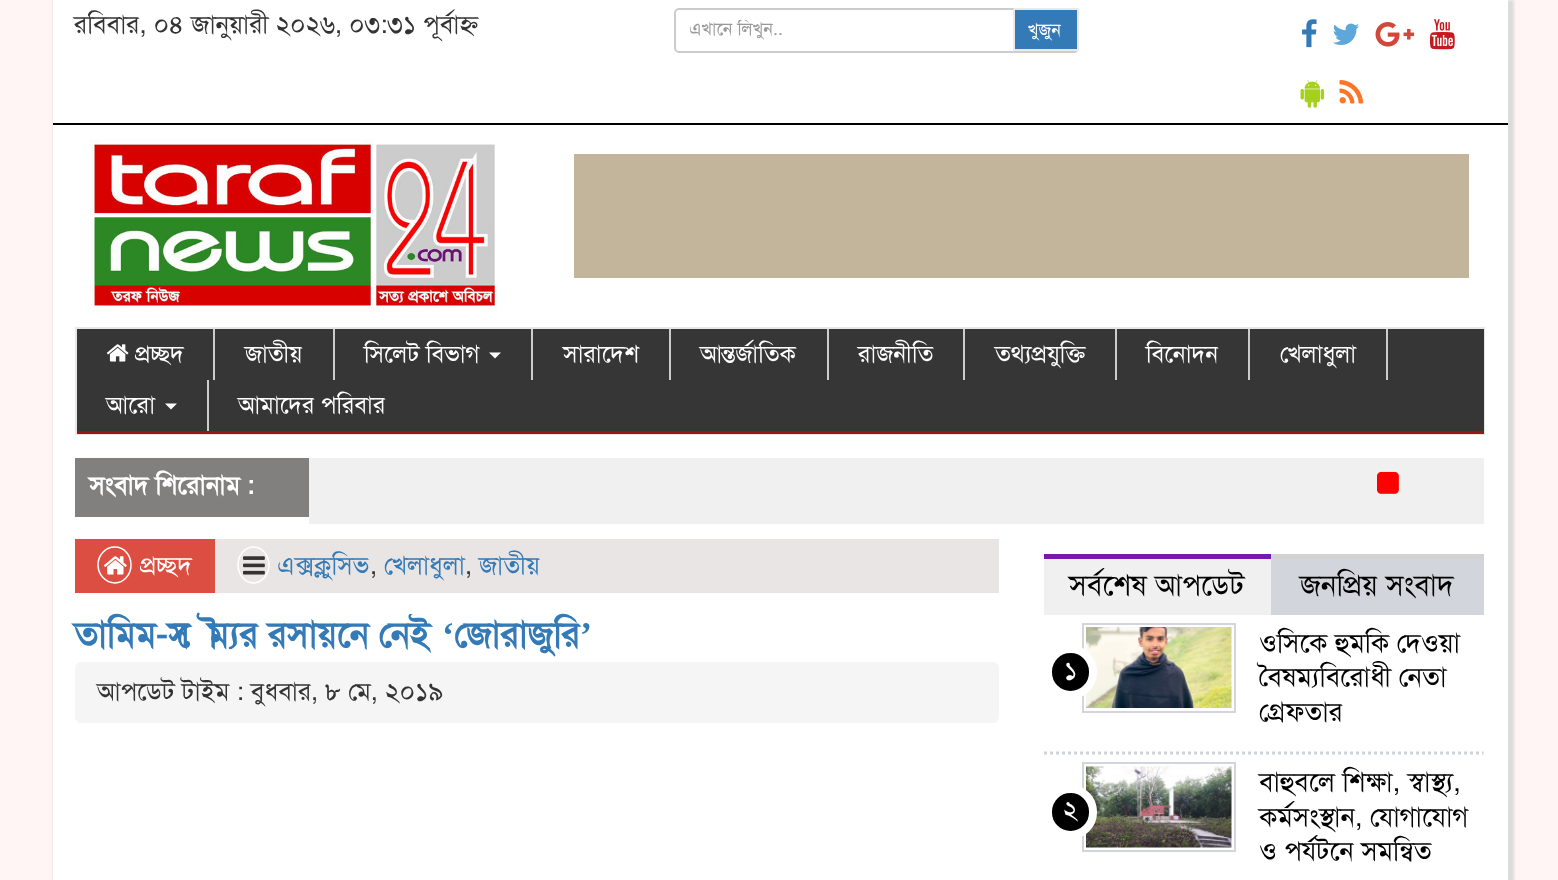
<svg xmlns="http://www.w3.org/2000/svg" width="1558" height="880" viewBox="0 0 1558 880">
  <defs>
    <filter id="blur1" x="-50%" y="-200%" width="200%" height="500%"><feGaussianBlur stdDeviation="1.5"/></filter>
    <clipPath id="clip1"><rect x="690" y="20" width="366" height="22"/></clipPath>
  </defs>
  <rect width="100%" height="100%" fill="#fff5f5"/>
  <rect x="53" y="0" width="1461" height="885" fill="#dadbda" filter="url(#blur1)"/>
  <rect x="53" y="0" width="1455" height="880" fill="#ffffff"/>
  <rect x="53" y="123" width="1455" height="2" fill="#000000"/>
  <text x="74" y="33" font-family="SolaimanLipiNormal" font-size="25.5" fill="#333333">রবিবার, ০৪ জানুয়ারী ২০২৬, ০৩:৩১ পূর্বাহ্ন</text>
  <rect x="675" y="9" width="403" height="43" rx="4" fill="none" stroke="#cccccc" stroke-width="2"/>
  <g clip-path="url(#clip1)">
    <text x="689" y="35" font-family="SolaimanLipiNormal" font-size="18" fill="#999999">এখানে লিখুন..</text>
  </g>
  <rect x="1014" y="9" width="64" height="41" rx="0.5" fill="#337ab7" stroke="#e6eae9" stroke-width="2"/>
  <text x="1028" y="36" font-family="SolaimanLipiNormal" font-size="18" fill="#ffffff">খুজুন</text>
  <image x="1302" y="19" width="15" height="29" href="img1.png"/>
  <image x="1333" y="23" width="26" height="22" href="img2.png"/>
  <image x="1375" y="22" width="40" height="25" href="img3.png"/>
  <image x="1429" y="19" width="26" height="31" href="img4.png"/>
  <image x="1300" y="80" width="25" height="28" href="img5.png"/>
  <image x="1339" y="79" width="25" height="25" href="img6.png"/>
  <image x="90" y="139" width="407" height="173" href="img7.png"/>
  <rect x="574" y="154" width="895" height="124" fill="#c3b59b"/>
  <rect x="76" y="328" width="1408" height="106" fill="none" stroke="#e7e7e7" stroke-width="2"/>
  <rect x="77" y="329" width="1407" height="102" fill="#363636"/>
  <rect x="77" y="431" width="1407" height="3" fill="#9a1515"/>
  <rect x="213" y="329" width="2" height="51" fill="#cccccc"/>
  <image x="106" y="344" width="23" height="18" href="img8.png"/>
  <text x="135" y="362" font-family="SolaimanLipiNormal" font-size="24" fill="#ffffff">প্রচ্ছদ</text>
  <rect x="333" y="329" width="2" height="51" fill="#cccccc"/>
  <text x="245" y="362" font-family="SolaimanLipiNormal" font-size="24" fill="#ffffff">জাতীয়</text>
  <rect x="531" y="329" width="2" height="51" fill="#cccccc"/>
  <text x="364" y="362" font-family="SolaimanLipiNormal" font-size="24" fill="#ffffff">সিলেট বিভাগ</text>
  <path d="M489 352.5H501L495 358.5Z" fill="#ffffff"/>
  <rect x="669" y="329" width="2" height="51" fill="#cccccc"/>
  <text x="563" y="362" font-family="SolaimanLipiNormal" font-size="24" fill="#ffffff">সারাদেশ</text>
  <rect x="827" y="329" width="2" height="51" fill="#cccccc"/>
  <text x="700" y="362" font-family="SolaimanLipiNormal" font-size="24" fill="#ffffff">আন্তর্জাতিক</text>
  <rect x="963" y="329" width="2" height="51" fill="#cccccc"/>
  <text x="858" y="362" font-family="SolaimanLipiNormal" font-size="24" fill="#ffffff">রাজনীতি</text>
  <rect x="1115" y="329" width="2" height="51" fill="#cccccc"/>
  <text x="995" y="362" font-family="SolaimanLipiNormal" font-size="24" fill="#ffffff">তথ্যপ্রযুক্তি</text>
  <rect x="1248" y="329" width="2" height="51" fill="#cccccc"/>
  <text x="1146" y="362" font-family="SolaimanLipiNormal" font-size="24" fill="#ffffff">বিনোদন</text>
  <rect x="1386" y="329" width="2" height="51" fill="#cccccc"/>
  <text x="1280" y="362" font-family="SolaimanLipiNormal" font-size="24" fill="#ffffff">খেলাধুলা</text>
  <rect x="207" y="380" width="2" height="51" fill="#cccccc"/>
  <text x="106" y="413" font-family="SolaimanLipiNormal" font-size="24" fill="#ffffff">আরো</text>
  <path d="M165 403.5H177L171 409.5Z" fill="#ffffff"/>
  <text x="238" y="413" font-family="SolaimanLipiNormal" font-size="24" fill="#ffffff">আমাদের পরিবার</text>
  <rect x="75" y="458" width="234" height="59" fill="#827f7f"/>
  <text x="89" y="494" font-family="SolaimanLipiNormal" font-size="25.5" font-weight="bold" fill="#ffffff">সংবাদ শিরোনাম :</text>
  <rect x="309" y="458" width="1175" height="66" fill="#f0f0f0"/>
  <image x="1377" y="471" width="22" height="23" href="img9.png"/>
  <rect x="215" y="539" width="784" height="54" fill="#eae5e5"/>
  <rect x="75" y="539" width="140" height="54" fill="#dc4e41"/>
  <path d="M115 547C124 547 131 555 131 565C131 574.5 124 583 115 583C105.5 583 98 574.5 98 565C98 555 105.5 547 115 547Z" fill="none" stroke="#ffffff" stroke-width="1.5"/>
  <image x="103" y="556" width="24" height="19" href="img10.png"/>
  <text x="140" y="574" font-family="SolaimanLipiNormal" font-size="25.5" fill="#ffffff">প্রচ্ছদ</text>
  <path d="M253.5 547C262 547 269 555 269 565C269 574.5 262 583 253.5 583C245 583 238 574.5 238 565C238 555 245 547 253.5 547Z" fill="none" stroke="#ffffff" stroke-width="1.5"/>
  <image x="243" y="556" width="22" height="19" href="img11.png"/>
  <text x="277" y="574" font-family="SolaimanLipiNormal" font-size="25.5" fill="#337ab7">এক্সক্লুসিভ</text>
  <text x="370" y="574" font-family="SolaimanLipiNormal" font-size="25.5" fill="#333333">,</text>
  <text x="384" y="574" font-family="SolaimanLipiNormal" font-size="25.5" fill="#337ab7">খেলাধুলা</text>
  <text x="465" y="574" font-family="SolaimanLipiNormal" font-size="25.5" fill="#333333">,</text>
  <text x="479" y="574" font-family="SolaimanLipiNormal" font-size="25.5" fill="#337ab7">জাতীয়</text>
  <text x="74" y="647" font-family="SolaimanLipiNormal" font-size="36" font-weight="bold" fill="#337ab7">তামিম-সৌম্যর রসায়নে নেই</text>
  <text x="442" y="647" font-family="Liberation Serif" font-size="36" font-weight="bold" fill="#337ab7">‘</text>
  <text x="454" y="647" font-family="SolaimanLipiNormal" font-size="36" font-weight="bold" fill="#337ab7">জোরাজুরি</text>
  <text x="580" y="647" font-family="Liberation Serif" font-size="36" font-weight="bold" fill="#337ab7">’</text>
  <rect x="75" y="662" width="924" height="61" rx="6" fill="#f5f5f5"/>
  <text x="97" y="700" font-family="SolaimanLipiNormal" font-size="25.5" fill="#333333">আপডেট টাইম : বুধবার, ৮ মে, ২০১৯</text>
  <rect x="1271" y="559" width="213" height="56" fill="#d2d5db"/>
  <rect x="1044" y="559" width="227" height="56" fill="#f0f0f0"/>
  <rect x="1044" y="554" width="227" height="5" fill="#7719aa"/>
  <text x="1069" y="595" font-family="SolaimanLipiNormal" font-size="29.25" fill="#000000">সর্বশেষ আপডেট</text>
  <rect x="1271" y="554" width="213" height="5" fill="#d2d2d2"/>
  <text x="1300" y="595" font-family="SolaimanLipiNormal" font-size="29.25" fill="#000000">জনপ্রিয় সংবাদ</text>
  <path d="M1044 753H1483.5" fill="none" stroke="#cfd3d5" stroke-width="3" stroke-dasharray="3 3"/>
  <rect x="1083" y="624" width="152" height="88" fill="none" stroke="#d2d5db" stroke-width="2"/>
  <image x="1086" y="627" width="146" height="81" href="img12.png"/>
  <rect x="1048" y="649" width="45" height="46" rx="22.5" fill="#000000" stroke="#ffffff" stroke-width="8"/>
  <text x="1064" y="679" font-family="SolaimanLipiNormal" font-size="25.5" fill="#ffffff">১</text>
  <text x="1259" y="652" font-family="SolaimanLipiNormal" font-size="27" fill="#000000">ওসিকে হুমকি দেওয়া</text>
  <text x="1259" y="686" font-family="SolaimanLipiNormal" font-size="27" fill="#000000">বৈষম্যবিরোধী নেতা</text>
  <text x="1259" y="721" font-family="SolaimanLipiNormal" font-size="27" fill="#000000">গ্রেফতার</text>
  <rect x="1083" y="763" width="152" height="88" fill="none" stroke="#d2d5db" stroke-width="2"/>
  <image x="1086" y="766" width="146" height="82" href="img13.png"/>
  <rect x="1048" y="789" width="45" height="46" rx="22.5" fill="#000000" stroke="#ffffff" stroke-width="8"/>
  <text x="1063" y="818" font-family="SolaimanLipiNormal" font-size="25.5" fill="#ffffff">২</text>
  <text x="1259" y="791" font-family="SolaimanLipiNormal" font-size="27" fill="#000000">বাহুবলে শিক্ষা, স্বাস্থ্য,</text>
  <text x="1259" y="826" font-family="SolaimanLipiNormal" font-size="27" fill="#000000">কর্মসংস্থান, যোগাযোগ</text>
  <text x="1259" y="860" font-family="SolaimanLipiNormal" font-size="27" fill="#000000">ও পর্যটনে সমন্বিত</text>
</svg>
